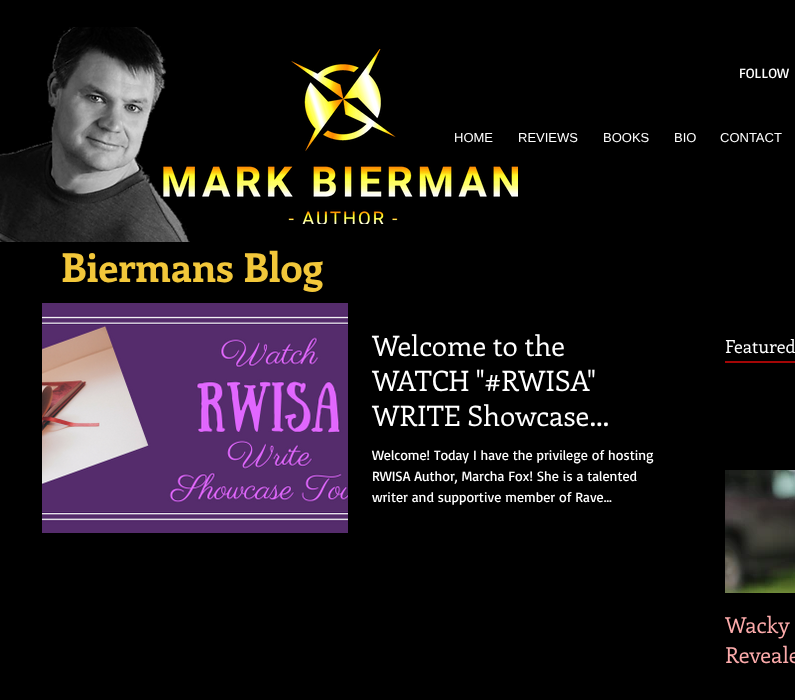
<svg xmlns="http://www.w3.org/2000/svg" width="795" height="700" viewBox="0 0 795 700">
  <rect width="100%" height="100%" fill="#000000"/>
  <text x="454" y="142" font-family="Liberation Sans" font-size="13" fill="#ffffff">HOME</text>
  <image x="163" y="49" width="355" height="175" href="img2.png"/>
  <image x="0" y="27" width="190" height="215" href="img1.png"/>
  <text x="739" y="78" font-family="Basic" font-size="14" fill="#ffffff">FOLLOW</text>
  <text x="518" y="142" font-family="Liberation Sans" font-size="13" fill="#ffffff">REVIEWS</text>
  <text x="603" y="142" font-family="Liberation Sans" font-size="13" fill="#ffffff">BOOKS</text>
  <text x="674" y="142" font-family="Liberation Sans" font-size="13" fill="#ffffff">BIO</text>
  <text x="720" y="142" font-family="Liberation Sans" font-size="13" fill="#ffffff">CONTACT</text>
  <text x="61" y="282" font-family="Enriqueta" font-size="40" font-weight="bold" fill="#f2c73a">Biermans Blog</text>
  <image x="42" y="303" width="306" height="230" href="img3.png"/>
  <text x="372" y="356" font-family="Enriqueta" font-size="28" fill="#ffffff">Welcome to the</text>
  <text x="372" y="391" font-family="Enriqueta" font-size="28" fill="#ffffff">WATCH "#RWISA"</text>
  <text x="372" y="426" font-family="Enriqueta" font-size="28" fill="#ffffff">WRITE Showcase…</text>
  <text x="372" y="460" font-family="Basic" font-size="14" fill="#ffffff">Welcome! Today I have the privilege of hosting</text>
  <text x="372" y="481" font-family="Basic" font-size="14" fill="#ffffff">RWISA Author, Marcha Fox! She is a talented</text>
  <text x="372" y="502" font-family="Basic" font-size="14" fill="#ffffff">writer and supportive member of Rave…</text>
  <text x="725" y="353" font-family="Enriqueta" font-size="18" fill="#ffffff">Featured</text>
  <rect x="725" y="361" width="70" height="2" fill="#a40606"/>
  <image x="725" y="470" width="70" height="123" href="img4.png"/>
  <text x="725" y="633" font-family="Enriqueta" font-size="22" fill="#fcabab">Wacky</text>
  <text x="725" y="663" font-family="Enriqueta" font-size="22" fill="#fcabab">Reveale</text>
</svg>
